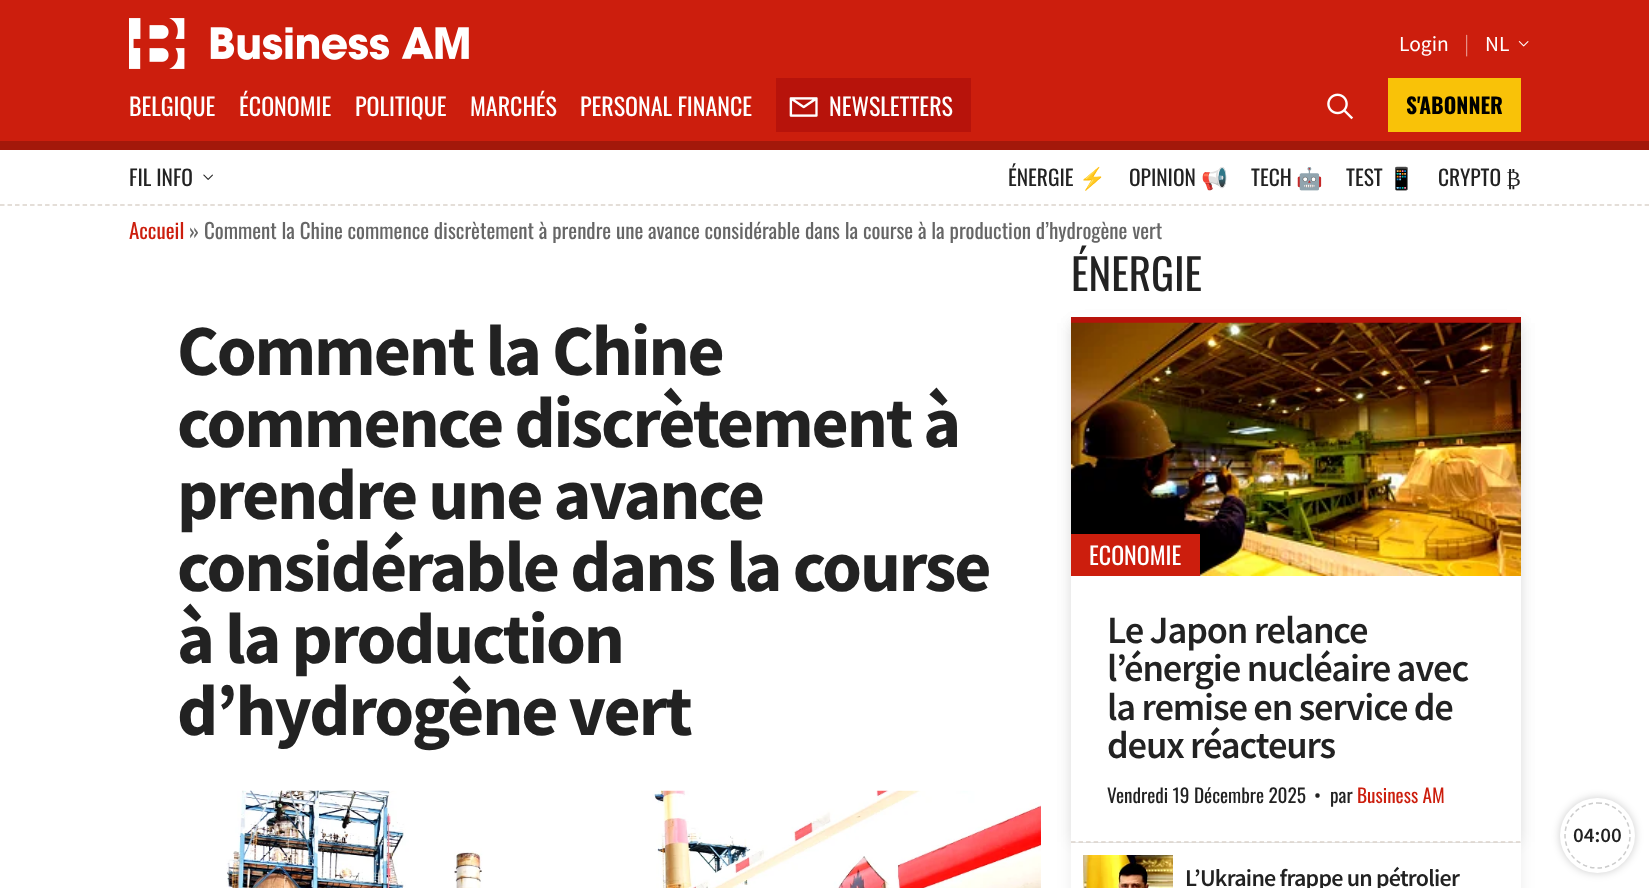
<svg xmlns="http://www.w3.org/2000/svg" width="1649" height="888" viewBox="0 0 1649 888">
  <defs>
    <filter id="blur1" x="-50%" y="-200%" width="200%" height="500%"><feGaussianBlur stdDeviation="7.5"/></filter>
    <filter id="blur2" x="-50%" y="-200%" width="200%" height="500%"><feGaussianBlur stdDeviation="4"/></filter>
  </defs>
  <rect width="100%" height="100%" fill="#ffffff"/>
  <rect x="0" y="0" width="1649" height="141" fill="#cc1e0d"/>
  <image x="129" y="18" width="340" height="51" href="img1.png"/>
  <text x="1399" y="51" font-family="Source Sans Pro" font-size="21.5" fill="#ffffff">Login</text>
  <text x="1464" y="51" font-family="Source Sans Pro" font-size="21.5" fill="#e68f86">|</text>
  <text x="1485" y="51" font-family="Source Sans Pro" font-size="21.5" fill="#ffffff">NL</text>
  <image x="1518" y="41" width="11" height="6" href="img2.png"/>
  <text x="129" y="116" font-family="Oswald" font-size="24" fill="#ffffff">BELGIQUE</text>
  <text x="239" y="116" font-family="Oswald" font-size="24" fill="#ffffff">ÉCONOMIE</text>
  <text x="355" y="116" font-family="Oswald" font-size="24" fill="#ffffff">POLITIQUE</text>
  <text x="470" y="116" font-family="Oswald" font-size="24" fill="#ffffff">MARCHÉS</text>
  <text x="580" y="116" font-family="Oswald" font-size="24" fill="#ffffff">PERSONAL FINANCE</text>
  <rect x="776" y="78" width="195" height="54" fill="#b7130b"/>
  <image x="789" y="97" width="29" height="20" href="img3.png"/>
  <text x="829" y="116" font-family="Oswald" font-size="24" fill="#ffffff">NEWSLETTERS</text>
  <image x="1327" y="93" width="27" height="27" href="img4.png"/>
  <rect x="1388" y="78" width="133" height="54" fill="#f9c208"/>
  <text x="1406" y="114" font-family="Oswald" font-size="21.5" font-weight="bold" fill="#000000">S'ABONNER</text>
  <rect x="0" y="141" width="1649" height="9" fill="#a3180a"/>
  <text x="129" y="186" font-family="Oswald" font-size="21.5" fill="#222222">FIL INFO</text>
  <image x="203" y="174" width="10" height="6" href="img5.png"/>
  <text x="1008" y="186" font-family="Oswald" font-size="21.5" fill="#222222">ÉNERGIE</text>
  <text x="1079" y="186" font-family="Noto Color Emoji" font-size="21.5" fill="#222222">⚡</text>
  <text x="1129" y="186" font-family="Oswald" font-size="21.5" fill="#222222">OPINION</text>
  <text x="1201" y="186" font-family="Noto Color Emoji" font-size="21.5" fill="#222222">📢</text>
  <text x="1251" y="186" font-family="Oswald" font-size="21.5" fill="#222222">TECH</text>
  <text x="1296" y="186" font-family="Noto Color Emoji" font-size="21.5" fill="#222222">🤖</text>
  <text x="1346" y="186" font-family="Oswald" font-size="21.5" fill="#222222">TEST</text>
  <text x="1388" y="186" font-family="Noto Color Emoji" font-size="21.5" fill="#222222">📱</text>
  <text x="1438" y="186" font-family="Oswald" font-size="21.5" fill="#222222">CRYPTO</text>
  <text x="1506" y="186" font-family="Liberation Serif" font-size="21.5" fill="#222222">₿</text>
  <path d="M0 205H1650" fill="none" stroke="#dbd3cc" stroke-width="1.5" stroke-dasharray="4.5 3.01"/>
  <text x="129" y="239" font-family="Oswald" font-size="21" fill="#cc1e0d">Accueil</text>
  <text x="189" y="239" font-family="Oswald" font-size="21" fill="#666666">» Comment la Chine commence discrètement à prendre une avance considérable dans la course à la production d’hydrogène vert</text>
  <text x="177" y="375" font-family="Source Sans Pro" font-size="72" font-weight="bold" letter-spacing="-2.15" fill="#222222">Comment la Chine</text>
  <text x="177" y="447" font-family="Source Sans Pro" font-size="72" font-weight="bold" letter-spacing="-2.15" fill="#222222">commence discrètement à</text>
  <text x="177" y="519" font-family="Source Sans Pro" font-size="72" font-weight="bold" letter-spacing="-2.15" fill="#222222">prendre une avance</text>
  <text x="177" y="591" font-family="Source Sans Pro" font-size="72" font-weight="bold" letter-spacing="-2.15" fill="#222222">considérable dans la course</text>
  <text x="177" y="663" font-family="Source Sans Pro" font-size="72" font-weight="bold" letter-spacing="-2.15" fill="#222222">à la production</text>
  <text x="177" y="735" font-family="Source Sans Pro" font-size="72" font-weight="bold" letter-spacing="-2.15" fill="#222222">d’hydrogène vert</text>
  <image x="226" y="790" width="815" height="98" href="img6.png"/>
  <rect x="1071" y="323" width="450" height="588" fill="#000000" fill-opacity="0.07" filter="url(#blur1)"/>
  <rect x="1071" y="323" width="450" height="519" fill="#000000" fill-opacity="0.07" filter="url(#blur1)"/>
  <rect x="1071" y="313" width="450" height="4" fill="#fefefe"/>
  <rect x="1071" y="317" width="450" height="6" fill="#b7130b"/>
  <text x="1071" y="291" font-family="Oswald" font-size="43" fill="#222222">ÉNERGIE</text>
  <rect x="1071" y="576" width="450" height="266" fill="#ffffff"/>
  <image x="1071" y="322" width="450" height="254" href="img7.png"/>
  <rect x="1071" y="534" width="129" height="42" fill="#cc1e0d"/>
  <text x="1089" y="565" font-family="Oswald" font-size="24" fill="#ffffff">ECONOMIE</text>
  <text x="1107" y="643" font-family="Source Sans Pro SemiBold" font-size="38.5" font-weight="600" letter-spacing="-1.15" fill="#222222">Le Japon relance</text>
  <text x="1107" y="681" font-family="Source Sans Pro SemiBold" font-size="38.5" font-weight="600" letter-spacing="-1.15" fill="#222222">l’énergie nucléaire avec</text>
  <text x="1107" y="720" font-family="Source Sans Pro SemiBold" font-size="38.5" font-weight="600" letter-spacing="-1.15" fill="#222222">la remise en service de</text>
  <text x="1107" y="758" font-family="Source Sans Pro SemiBold" font-size="38.5" font-weight="600" letter-spacing="-1.15" fill="#222222">deux réacteurs</text>
  <text x="1107" y="803" font-family="Oswald" font-size="19.25" fill="#222222">Vendredi 19 Décembre 2025</text>
  <text x="1314" y="803" font-family="Oswald" font-size="19.25" fill="#222222">•</text>
  <text x="1330" y="803" font-family="Oswald" font-size="19.25" fill="#222222">par</text>
  <text x="1357" y="803" font-family="Oswald" font-size="19.25" fill="#cc1e0d">Business AM</text>
  <path d="M1071 842H1521" fill="none" stroke="#dbd3cc" stroke-width="1.5" stroke-dasharray="4.5 3.04"/>
  <rect x="1071" y="843" width="450" height="45" fill="#ffffff"/>
  <image x="1083" y="855" width="90" height="33" href="img8.png"/>
  <text x="1185" y="886" font-family="Source Sans Pro SemiBold" font-size="24" font-weight="600" letter-spacing="-0.75" fill="#222222">L’Ukraine frappe un pétrolier</text>
  <rect x="1560" y="798" width="75" height="75" rx="37.5" fill="#000000" fill-opacity="0.2" filter="url(#blur2)"/>
  <circle cx="1597.5" cy="835.5" r="37.5" fill="#ffffff"/>
  <path d="M1597.5 803C1615.5 803 1630 817.5 1630 835.5C1630 853.5 1615.5 868 1597.5 868C1579.5 868 1565 853.5 1565 835.5C1565 817.5 1579.5 803 1597.5 803Z" fill="none" stroke="#cccccc" stroke-width="1.5" stroke-dasharray="4.5 3"/>
  <text x="1573" y="842" font-family="Source Sans Pro SemiBold" font-size="21" font-weight="600" fill="#222222">04:00</text>
</svg>
